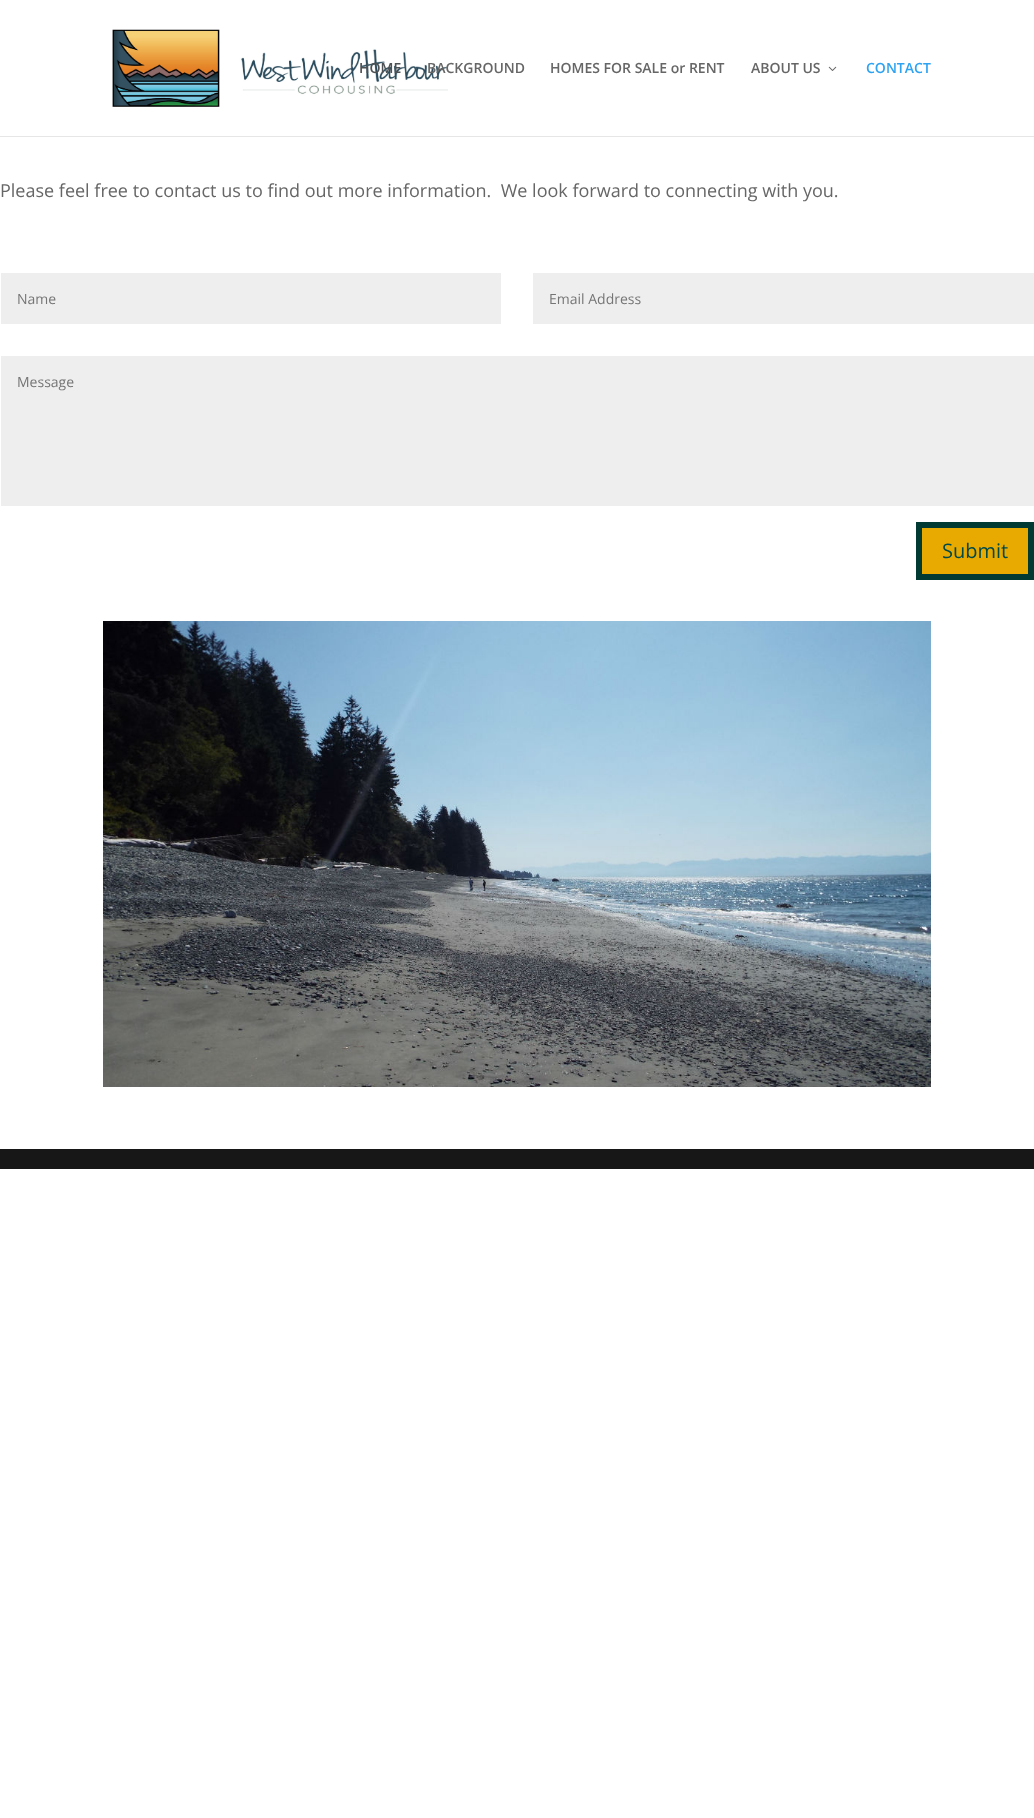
<svg xmlns="http://www.w3.org/2000/svg" width="1034" height="1818" viewBox="0 0 1034 1818">
  <rect width="100%" height="100%" fill="#ffffff"/>
  <rect x="0" y="136" width="1034" height="1" fill="#e6e6e6"/>
  <image x="112" y="29" width="336" height="78" href="img1.png"/>
  <text x="359" y="73" font-family="Open Sans" font-size="14" font-weight="600" fill="#4d5153">HOME</text>
  <text x="427" y="73" font-family="Open Sans" font-size="14" font-weight="600" fill="#666666">BACKGROUND</text>
  <text x="550" y="73" font-family="Open Sans" font-size="14" font-weight="600" fill="#666666">HOMES FOR SALE or RENT</text>
  <text x="751" y="73" font-family="Open Sans" font-size="14" font-weight="600" fill="#666666">ABOUT US</text>
  <image x="828" y="66" width="9" height="5" href="img2.png"/>
  <text x="866" y="73" font-family="Open Sans" font-size="14" font-weight="600" fill="#2ea3f2">CONTACT</text>
  <text x="0" y="197" font-family="Open Sans" font-size="18" fill="#666666" xml:space="preserve">Please feel free to contact us to find out more information.  We look forward to connecting with you.</text>
  <rect x="1" y="273" width="500" height="51" fill="#eeeeee"/>
  <text x="17" y="304" font-family="Open Sans" font-size="14" fill="#757575">Name</text>
  <rect x="533" y="273" width="501" height="51" fill="#eeeeee"/>
  <text x="549" y="304" font-family="Open Sans" font-size="14" fill="#757575">Email Address</text>
  <rect x="1" y="356" width="1033" height="150" fill="#eeeeee"/>
  <text x="17" y="387" font-family="Open Sans" font-size="14" fill="#757575">Message</text>
  <rect x="919" y="525" width="112" height="52" fill="#e8aa00" stroke="#003a32" stroke-width="6"/>
  <text x="942" y="558" font-family="Open Sans" font-size="20" fill="#004949">Submit</text>
  <image x="103" y="621" width="828" height="466" href="img3.png"/>
  <rect x="0" y="1149" width="1034" height="20" fill="#171717"/>
</svg>
